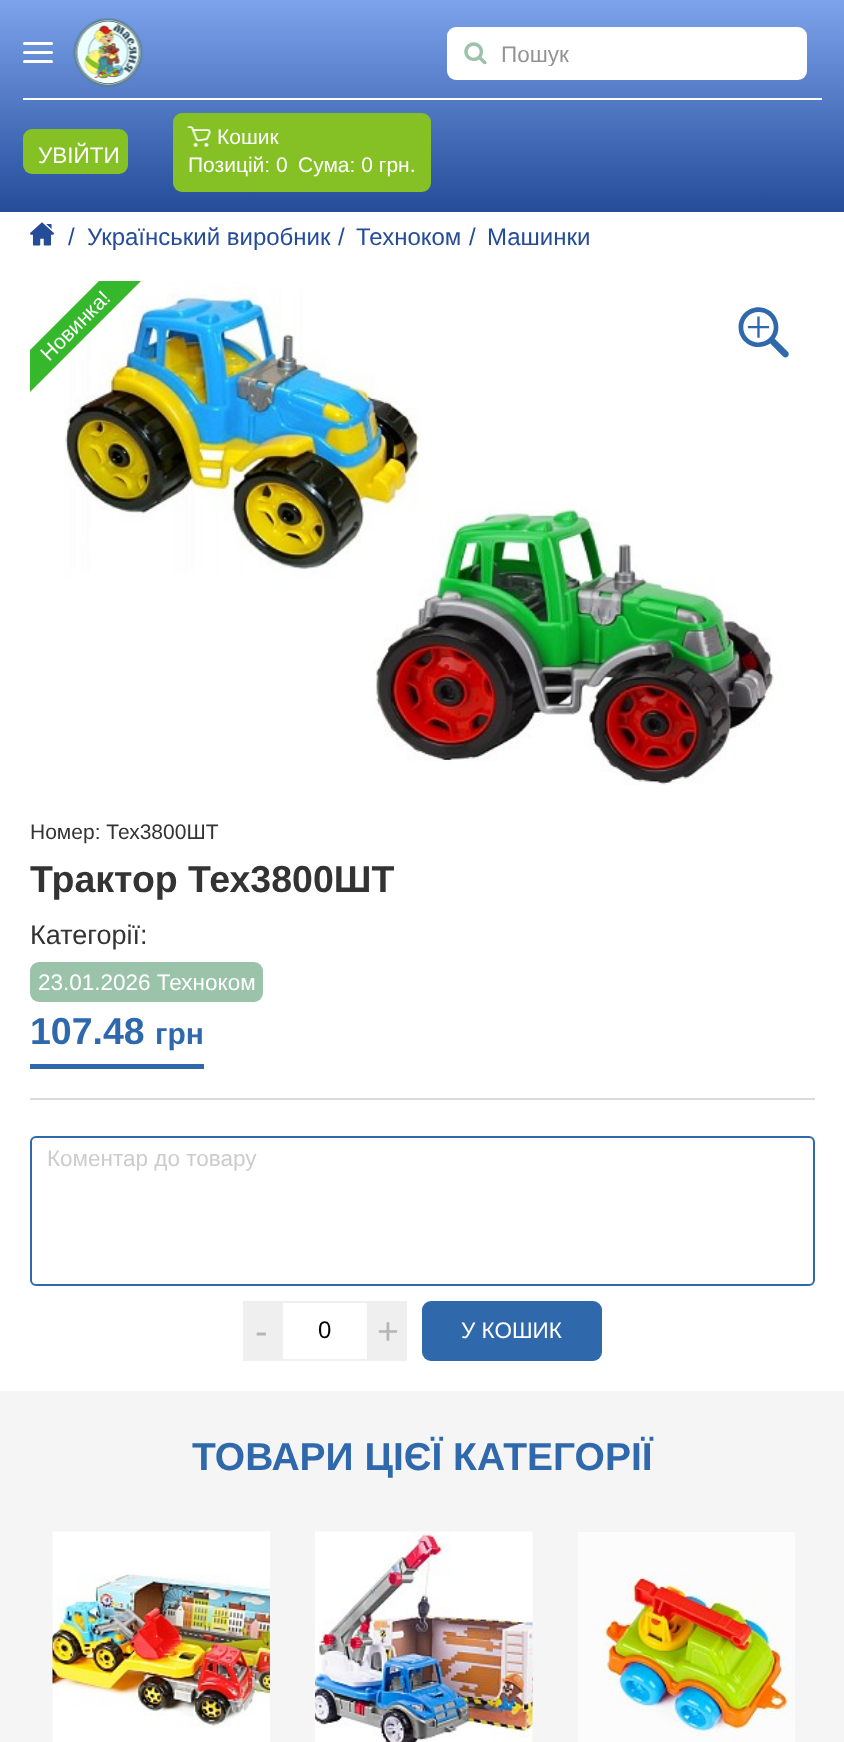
<svg xmlns="http://www.w3.org/2000/svg" width="844" height="1742" viewBox="0 0 844 1742">
  <defs>
    <linearGradient id="g1" gradientUnits="userSpaceOnUse" x1="422" y1="0" x2="422" y2="212"><stop offset="0" stop-color="#7da3ec"/><stop offset="1" stop-color="#244c99"/></linearGradient>
    <clipPath id="clip1"><rect x="501" y="41" width="290" height="25"/></clipPath>
    <clipPath id="clip2"><rect x="30" y="281" width="785" height="525"/></clipPath>
  </defs>
  <rect width="100%" height="100%" fill="#ffffff"/>
  <rect x="0" y="0" width="844" height="212" fill="url(#g1)"/>
  <rect x="23" y="51" width="30" height="3" rx="1.5" fill="#ffffff"/>
  <rect x="23" y="42" width="30" height="3" rx="1.5" fill="#ffffff"/>
  <rect x="23" y="60" width="30" height="3" rx="1.5" fill="#ffffff"/>
  <image x="72" y="18" width="71" height="70" href="img1.png"/>
  <rect x="447" y="27" width="360" height="53" rx="9" fill="#ffffff"/>
  <image x="464" y="42" width="23" height="23" href="img2.png"/>
  <g clip-path="url(#clip1)">
    <text x="501" y="62" font-family="Liberation Sans" font-size="22.5" fill="#959494">Пошук</text>
  </g>
  <rect x="23" y="98" width="799" height="2" fill="#ffffff"/>
  <rect x="23" y="129" width="105" height="45" rx="9" fill="#85c025"/>
  <text x="38" y="163" font-family="Liberation Sans" font-size="22.5" fill="#ffffff">УВІЙТИ</text>
  <rect x="173" y="113" width="258" height="79" rx="9" fill="#85c025"/>
  <image x="187" y="126" width="24" height="21" href="img3.png"/>
  <text x="217" y="144" font-family="Liberation Sans" font-size="21" fill="#ffffff">Кошик</text>
  <text x="188" y="172" font-family="Liberation Sans" font-size="21" fill="#ffffff">Позицій: 0</text>
  <text x="298" y="172" font-family="Liberation Sans" font-size="21" fill="#ffffff">Сума: 0 грн.</text>
  <image x="30" y="222" width="24" height="24" href="img4.png"/>
  <text x="68" y="245" font-family="Liberation Sans" font-size="24" fill="#244c99">/</text>
  <text x="87" y="245" font-family="Liberation Sans" font-size="24" fill="#244c99">Український виробник</text>
  <text x="338" y="245" font-family="Liberation Sans" font-size="24" fill="#244c99">/</text>
  <text x="356" y="245" font-family="Liberation Sans" font-size="24" fill="#244c99">Техноком</text>
  <text x="469" y="245" font-family="Liberation Sans" font-size="24" fill="#244c99">/</text>
  <text x="487" y="245" font-family="Liberation Sans" font-size="24" fill="#244c99">Машинки</text>
  <image x="64" y="282" width="718" height="503" href="img5.png"/>
  <image x="738" y="307" width="51" height="51" href="img6.png"/>
  <g clip-path="url(#clip2)">
    <path d="M1 379L128 252L149 273L22 400Z" fill="#35b82b"/>
  </g>
  <text x="49" y="362" transform="rotate(-45 49 362)" font-family="Liberation Sans" font-size="21" fill="#ffffff">Новинка!</text>
  <text x="30" y="839" font-family="Liberation Sans" font-size="21" fill="#333333">Номер: Тех3800ШТ</text>
  <text x="30" y="892" font-family="Liberation Sans" font-size="37.5" font-weight="bold" fill="#333333">Трактор Тех3800ШТ</text>
  <text x="30" y="944" font-family="Liberation Sans" font-size="27" fill="#333333">Категорії:</text>
  <rect x="30" y="962" width="233" height="40" rx="9" fill="#9bc3aa"/>
  <text x="38" y="990" font-family="Liberation Sans" font-size="22.5" fill="#ffffff">23.01.2026 Техноком</text>
  <rect x="30" y="1064" width="174" height="5" fill="#2f69ac"/>
  <text x="30" y="1044" font-family="Liberation Sans" font-size="37.5" font-weight="bold" fill="#2f69ac">107.48</text>
  <text x="155" y="1044" font-family="Liberation Sans" font-size="30" font-weight="bold" fill="#2f69ac">грн</text>
  <rect x="30" y="1098" width="785" height="2" fill="#dbdbdb"/>
  <rect x="31" y="1137" width="783" height="148" rx="5" fill="none" stroke="#2f69ac" stroke-width="2"/>
  <text x="47" y="1166" font-family="Liberation Sans" font-size="22.5" fill="#cccccc">Коментар до товару</text>
  <rect x="243" y="1301" width="38" height="60" fill="#efefef"/>
  <text x="255" y="1344" font-family="Liberation Sans" font-size="37.5" fill="#b5b5b5">-</text>
  <rect x="282" y="1302" width="86" height="58" fill="none" stroke="#efefef" stroke-width="2"/>
  <text x="318" y="1338" font-family="Liberation Sans" font-size="24" fill="#000000">0</text>
  <rect x="369" y="1301" width="38" height="60" fill="#efefef"/>
  <text x="377" y="1344" font-family="Liberation Sans" font-size="37.5" fill="#b5b5b5">+</text>
  <rect x="422" y="1301" width="180" height="60" rx="9" fill="#2f69ac"/>
  <text x="461" y="1338" font-family="Liberation Sans" font-size="22.5" fill="#ffffff">У КОШИК</text>
  <rect x="0" y="1391" width="844" height="351" fill="#f5f5f5"/>
  <text x="192" y="1470" font-family="Liberation Sans" font-size="39" font-weight="bold" fill="#2f69ac">ТОВАРИ ЦІЄЇ КАТЕГОРІЇ</text>
  <image x="52" y="1531" width="218" height="211" href="img7.png"/>
  <image x="315" y="1531" width="218" height="211" href="img8.png"/>
  <image x="578" y="1532" width="217" height="210" href="img9.png"/>
</svg>
